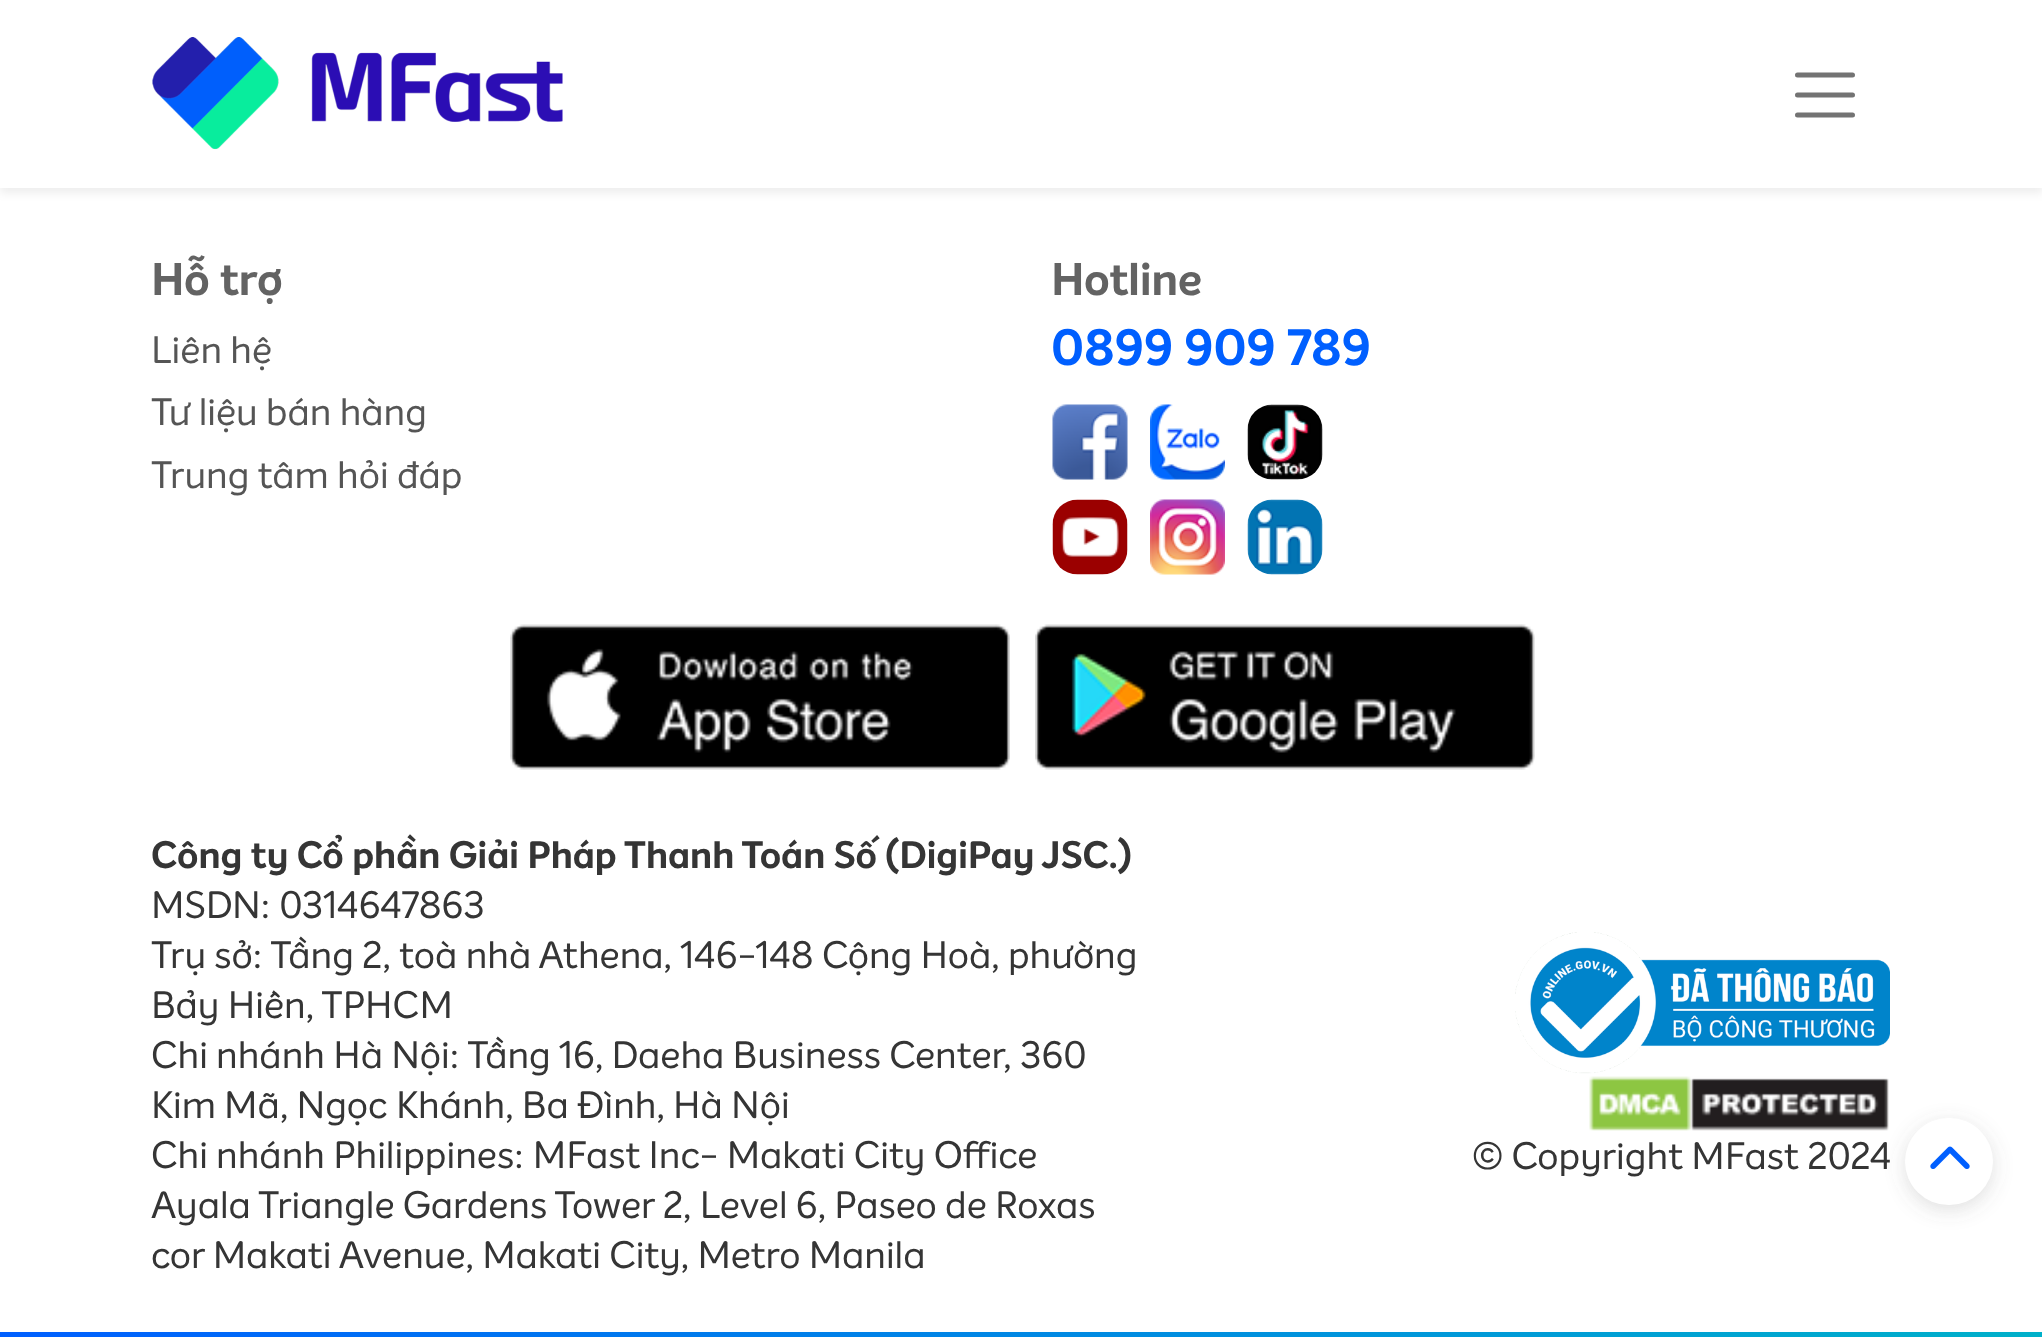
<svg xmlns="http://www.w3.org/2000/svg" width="2042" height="1337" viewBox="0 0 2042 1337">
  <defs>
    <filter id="blur1" x="-50%" y="-200%" width="200%" height="500%"><feGaussianBlur stdDeviation="5"/></filter>
    <filter id="blur2" x="-50%" y="-200%" width="200%" height="500%"><feGaussianBlur stdDeviation="10"/></filter>
  </defs>
  <rect width="100%" height="100%" fill="#ffffff"/>
  <rect x="0" y="5" width="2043" height="188" fill="#000000" fill-opacity="0.07" filter="url(#blur1)"/>
  <rect x="0" y="0" width="2042" height="188" fill="#ffffff"/>
  <image x="152" y="37" width="411" height="113" href="img1.png"/>
  <path d="M1797.5 75H1852.5M1797.5 95H1852.5M1797.5 115H1852.5" fill="none" stroke="#737373" stroke-width="5" stroke-linecap="round"/>
  <image x="0" y="1332" width="2042" height="5" href="img2.png"/>
  <text x="151" y="295" font-family="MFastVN" font-size="45" font-weight="bold" fill="#636363">Hỗ trợ</text>
  <text x="151" y="363" font-family="MFastVN" font-size="37.5" fill="#555555">Liên hệ</text>
  <text x="151" y="425" font-family="MFastVN" font-size="37.5" fill="#555555">Tư liệu bán hàng</text>
  <text x="151" y="488" font-family="MFastVN" font-size="37.5" fill="#555555">Trung tâm hỏi đáp</text>
  <text x="1051" y="295" font-family="MFastVN" font-size="45" font-weight="bold" fill="#636363">Hotline</text>
  <text x="1051" y="365" font-family="MFastVN" font-size="50" font-weight="bold" fill="#005fff">0899 909 789</text>
  <image x="1052" y="404" width="76" height="76" href="img3.png"/>
  <image x="1150" y="404" width="75" height="76" href="img4.png"/>
  <image x="1247" y="404" width="76" height="76" href="img5.png"/>
  <image x="1052" y="499" width="76" height="76" href="img6.png"/>
  <image x="1150" y="499" width="75" height="76" href="img7.png"/>
  <image x="1247" y="499" width="76" height="76" href="img8.png"/>
  <image x="510" y="624" width="500" height="146" href="img9.png"/>
  <image x="1035" y="624" width="500" height="146" href="img10.png"/>
  <text x="151" y="868" font-family="MFastVN" font-size="37.5" font-weight="bold" fill="#353535">Công ty Cổ phần Giải Pháp Thanh Toán Số (DigiPay JSC.)</text>
  <text x="151" y="918" font-family="MFastVN" font-size="37.5" fill="#353535">MSDN: 0314647863</text>
  <text x="151" y="968" font-family="MFastVN" font-size="37.5" fill="#353535">Trụ sở: Tầng 2, toà nhà Athena, 146-148 Cộng Hoà, phường</text>
  <text x="151" y="1018" font-family="MFastVN" font-size="37.5" fill="#353535">Bảy Hiền, TPHCM</text>
  <text x="151" y="1068" font-family="MFastVN" font-size="37.5" fill="#353535">Chi nhánh Hà Nội: Tầng 16, Daeha Business Center, 360</text>
  <text x="151" y="1118" font-family="MFastVN" font-size="37.5" fill="#353535">Kim Mã, Ngọc Khánh, Ba Đình, Hà Nội</text>
  <text x="151" y="1168" font-family="MFastVN" font-size="37.5" fill="#353535">Chi nhánh Philippines: MFast Inc- Makati City Office</text>
  <text x="151" y="1218" font-family="MFastVN" font-size="37.5" fill="#353535">Ayala Triangle Gardens Tower 2, Level 6, Paseo de Roxas</text>
  <text x="151" y="1268" font-family="MFastVN" font-size="37.5" fill="#353535">cor Makati Avenue, Makati City, Metro Manila</text>
  <image x="1515" y="932" width="375" height="142" href="img11.png"/>
  <image x="1589" y="1076" width="300" height="55" href="img12.png"/>
  <text x="1472" y="1169" font-family="MFastVN" font-size="37.5" fill="#353535">© Copyright MFast 2024</text>
  <rect x="1905" y="1123" width="88" height="87" rx="43.5" fill="#636363" fill-opacity="0.2" filter="url(#blur2)"/>
  <rect x="1905" y="1118" width="88" height="87" rx="43.5" fill="#ffffff"/>
  <image x="1930" y="1146" width="40" height="23" href="img13.png"/>
</svg>
